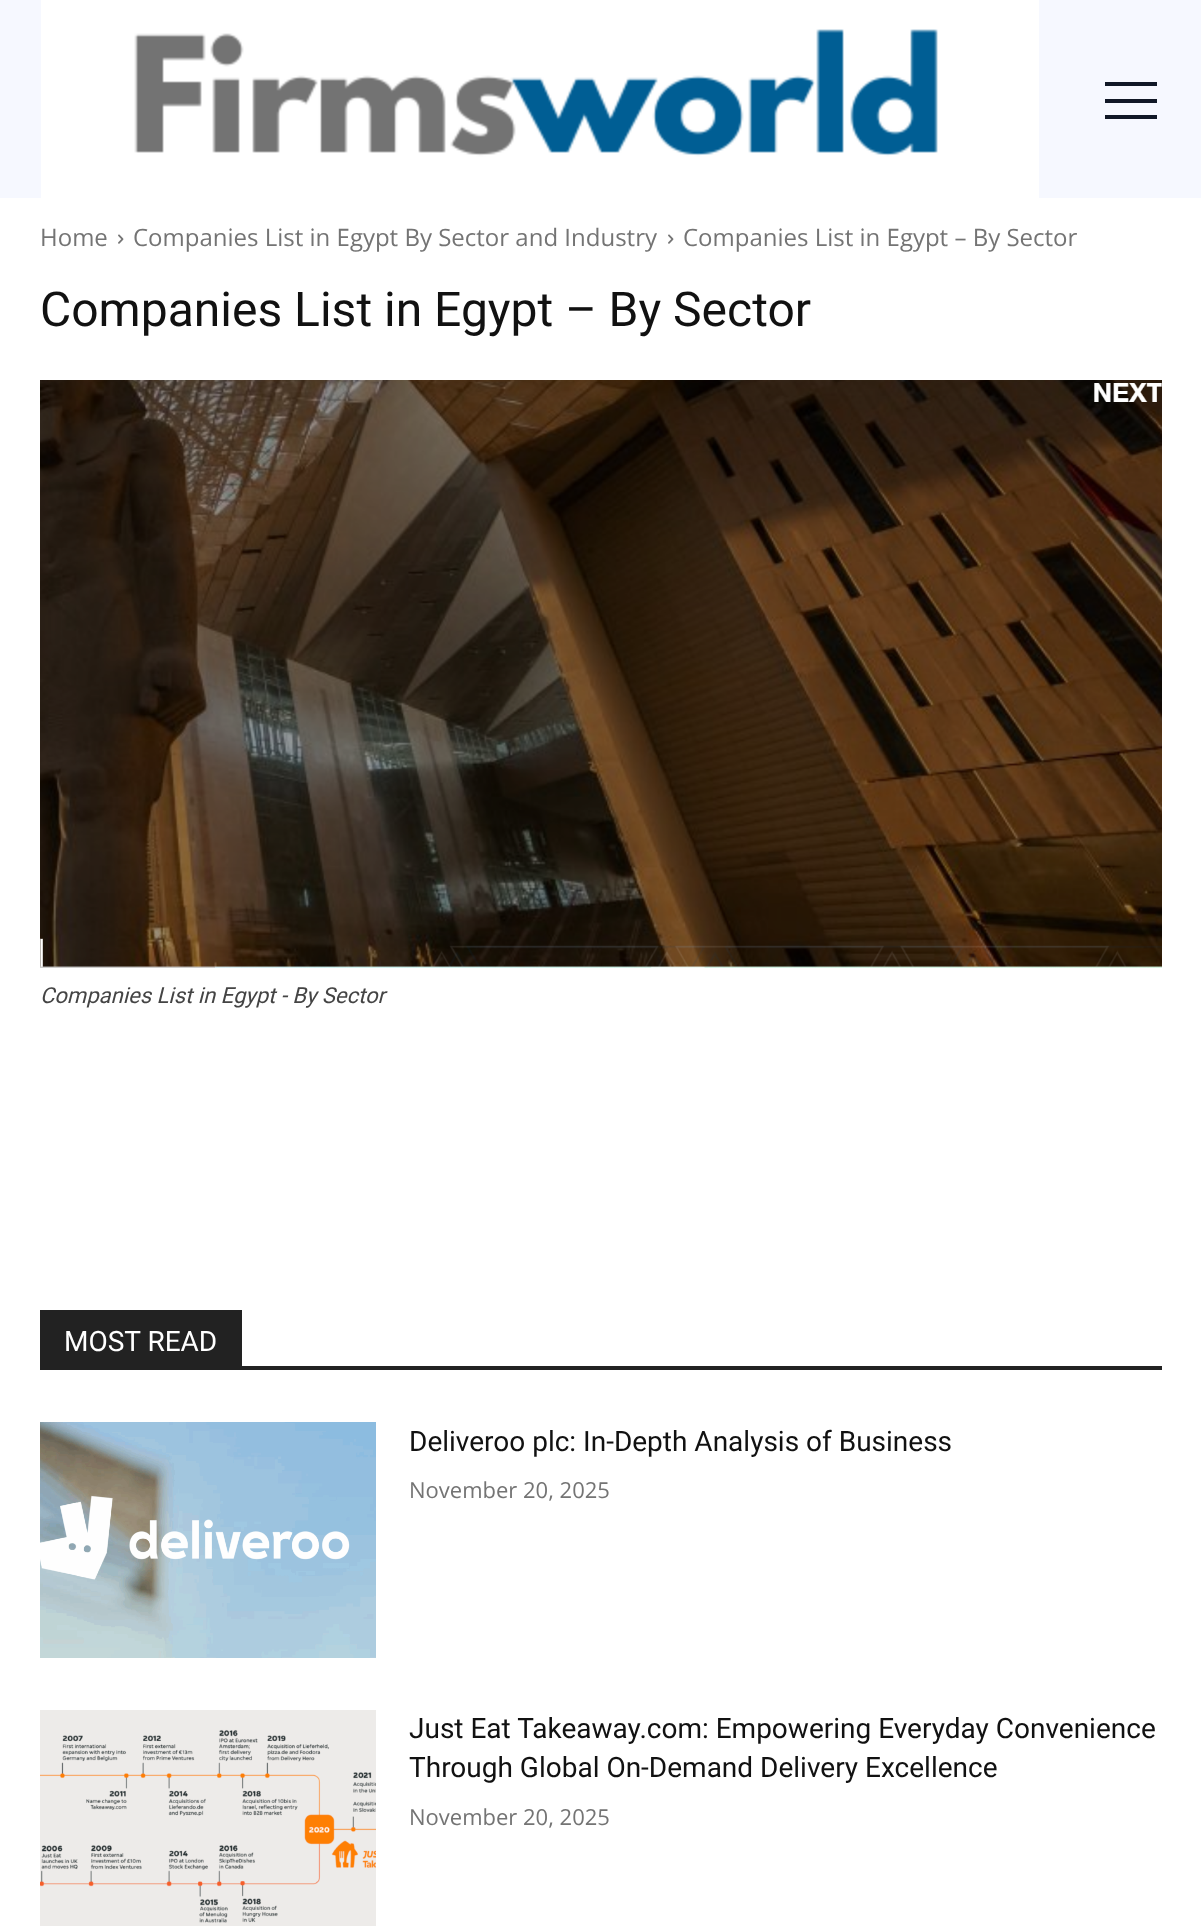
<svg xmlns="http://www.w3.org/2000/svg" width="1201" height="1926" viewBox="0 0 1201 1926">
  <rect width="100%" height="100%" fill="#ffffff"/>
  <rect x="0" y="0" width="1201" height="198" fill="#f6f8ff"/>
  <image x="41" y="0" width="998" height="198" href="img1.png"/>
  <path d="M1105 99H1157V103H1105ZM1105 82H1157V86H1105ZM1105 115H1157V119H1105Z" fill="#111827"/>
  <text x="40" y="246" font-family="Open Sans" font-size="24" fill="#747474">Home</text>
  <image x="118" y="234" width="6" height="10" href="img2.png"/>
  <text x="133" y="246" font-family="Open Sans" font-size="24" fill="#747474">Companies List in Egypt By Sector and Industry</text>
  <image x="668" y="234" width="6" height="10" href="img2.png"/>
  <text x="683" y="246" font-family="Open Sans" font-size="24" fill="#747474">Companies List in Egypt – By Sector</text>
  <text x="40" y="326" font-family="Roboto" font-size="48" fill="#111111">Companies List in Egypt – By Sector</text>
  <image x="40" y="380" width="1122" height="588" href="img3.png"/>
  <text x="40" y="1003" font-family="Roboto" font-size="22" font-style="italic" fill="#444444">Companies List in Egypt - By Sector</text>
  <rect x="40" y="1366" width="1122" height="4" fill="#222222"/>
  <rect x="40" y="1310" width="202" height="56" fill="#222222"/>
  <text x="64" y="1351" font-family="Roboto" font-size="28" fill="#ffffff">MOST READ</text>
  <image x="40" y="1422" width="336" height="236" href="img4.png"/>
  <text x="409" y="1451" font-family="Roboto" font-size="28" fill="#111111">Deliveroo plc: In-Depth Analysis of Business</text>
  <text x="409" y="1498" font-family="Open Sans" font-size="22" fill="#747474">November 20, 2025</text>
  <image x="40" y="1710" width="336" height="216" href="img5.png"/>
  <text x="409" y="1738" font-family="Roboto" font-size="28" fill="#111111">Just Eat Takeaway.com: Empowering Everyday Convenience</text>
  <text x="409" y="1777" font-family="Roboto" font-size="28" fill="#111111">Through Global On-Demand Delivery Excellence</text>
  <text x="409" y="1825" font-family="Open Sans" font-size="22" fill="#747474">November 20, 2025</text>
</svg>
